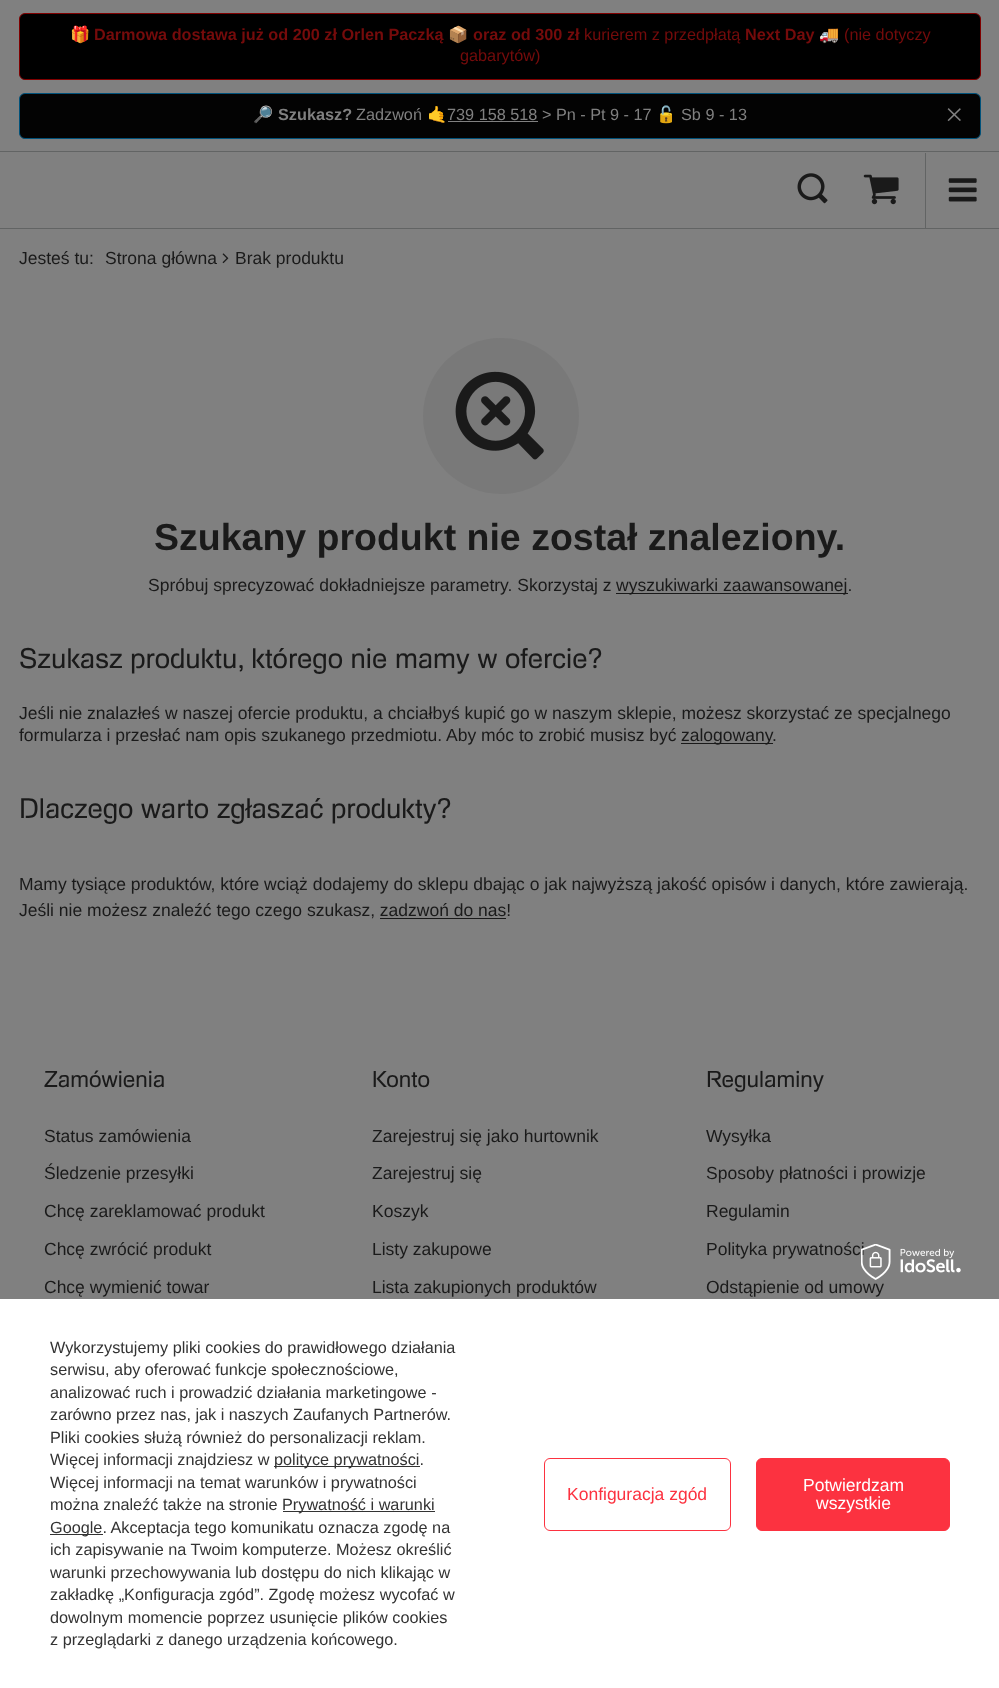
<svg xmlns="http://www.w3.org/2000/svg" width="999" height="1688" viewBox="0 0 999 1688">
  <rect width="100%" height="100%" fill="#808080"/>
  <rect x="0" y="228" width="999" height="1" fill="#626464"/>
  <rect x="0" y="151" width="999" height="1" fill="#626464"/>
  <rect x="19.5" y="13.5" width="961" height="66" rx="5.5" fill="#000000" stroke="#800000"/>
  <text x="70" y="40" font-family="Noto Color Emoji" font-size="16.25" font-weight="bold" fill="#750b0b">🎁</text>
  <text x="94" y="40" font-family="Liberation Sans" font-size="16.25" font-weight="bold" fill="#750b0b">Darmowa dostawa już od 200 zł Orlen Paczką</text>
  <text x="448" y="40" font-family="Noto Color Emoji" font-size="16.25" font-weight="bold" fill="#750b0b">📦</text>
  <text x="473" y="40" font-family="Liberation Sans" font-size="16.25" font-weight="bold" fill="#750b0b">oraz od 300 zł</text>
  <text x="584" y="40" font-family="Liberation Sans" font-size="16.25" fill="#750b0b">kurierem z przedpłatą</text>
  <text x="745" y="40" font-family="Liberation Sans" font-size="16.25" font-weight="bold" fill="#750b0b">Next Day</text>
  <text x="819" y="40" font-family="Noto Color Emoji" font-size="16.25" font-weight="bold" fill="#750b0b">🚚</text>
  <text x="844" y="40" font-family="Liberation Sans" font-size="16.25" fill="#750b0b">(nie dotyczy</text>
  <text x="460" y="61" font-family="Liberation Sans" font-size="16.25" fill="#750b0b">gabarytów)</text>
  <rect x="19.5" y="93.5" width="961" height="45" rx="5.5" fill="#030303" stroke="#00527b"/>
  <text x="253" y="120" font-family="Noto Color Emoji" font-size="16.25" font-weight="bold" fill="#808080">🔎</text>
  <text x="278" y="120" font-family="Liberation Sans" font-size="16.25" font-weight="bold" fill="#808080">Szukasz?</text>
  <text x="356" y="120" font-family="Liberation Sans" font-size="16.25" fill="#808080">Zadzwoń</text>
  <text x="427" y="120" font-family="Noto Color Emoji" font-size="16.25" fill="#808080">🤙</text>
  <text x="447" y="120" font-family="Liberation Sans" font-size="16.25" fill="#808080">739 158 518 &gt; Pn - Pt 9 - 17</text>
  <rect x="448" y="121" width="90" height="1" fill="#808080"/>
  <text x="656" y="120" font-family="Noto Color Emoji" font-size="16.25" fill="#808080">🔓</text>
  <text x="681" y="120" font-family="Liberation Sans" font-size="16.25" fill="#808080">Sb 9 - 13</text>
  <image x="947" y="108" width="14" height="14" href="img1.png"/>
  <image x="797" y="173" width="31" height="31" href="img2.png"/>
  <image x="863" y="174" width="36" height="31" href="img3.png"/>
  <rect x="925" y="153" width="1" height="75" fill="#626464"/>
  <image x="948" y="178" width="29" height="24" href="img4.png"/>
  <text x="19" y="264" font-family="Liberation Sans" font-size="17.5" fill="#1a1a1a">Jesteś tu:</text>
  <text x="105" y="264" font-family="Liberation Sans" font-size="17.5" fill="#1a1a1a">Strona główna</text>
  <image x="222" y="253" width="7" height="11" href="img5.png"/>
  <text x="235" y="264" font-family="Liberation Sans" font-size="17.5" fill="#1a1a1a">Brak produktu</text>
  <circle cx="501" cy="416" r="78" fill="#797979"/>
  <image x="455" y="371" width="89" height="89" href="img6.png"/>
  <text x="154" y="550" font-family="Liberation Sans" font-size="37.5" font-weight="bold" fill="#1a1a1a">Szukany produkt nie został znaleziony.</text>
  <text x="148" y="591" font-family="Liberation Sans" font-size="17.5" fill="#1a1a1a">Spróbuj sprecyzować dokładniejsze parametry. Skorzystaj z</text>
  <rect x="616" y="593" width="232" height="1" fill="#1a1a1a"/>
  <text x="616" y="591" font-family="Liberation Sans" font-size="17.5" fill="#1a1a1a">wyszukiwarki zaawansowanej.</text>
  <text x="19" y="668" font-family="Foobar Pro" font-size="27.5" fill="#1a1a1a">Szukasz produktu, którego nie mamy w ofercie?</text>
  <text x="19" y="719" font-family="Liberation Sans" font-size="17.5" fill="#1a1a1a">Jeśli nie znalazłeś w naszej ofercie produktu, a chciałbyś kupić go w naszym sklepie, możesz skorzystać ze specjalnego</text>
  <text x="19" y="741" font-family="Liberation Sans" font-size="17.5" fill="#1a1a1a">formularza i przesłać nam opis szukanego przedmiotu. Aby móc to zrobić musisz być</text>
  <rect x="681" y="743" width="92" height="1" fill="#1a1a1a"/>
  <text x="681" y="741" font-family="Liberation Sans" font-size="17.5" fill="#1a1a1a">zalogowany</text>
  <text x="772" y="741" font-family="Liberation Sans" font-size="17.5" fill="#1a1a1a">.</text>
  <text x="19" y="818" font-family="Foobar Pro" font-size="27.5" fill="#1a1a1a">Dlaczego warto zgłaszać produkty?</text>
  <text x="19" y="890" font-family="Liberation Sans" font-size="17.5" fill="#1a1a1a">Mamy tysiące produktów, które wciąż dodajemy do sklepu dbając o jak najwyższą jakość opisów i danych, które zawierają.</text>
  <text x="19" y="916" font-family="Liberation Sans" font-size="17.5" fill="#1a1a1a">Jeśli nie możesz znaleźć tego czego szukasz, zadzwoń do nas!</text>
  <rect x="380" y="918" width="126" height="1" fill="#1a1a1a"/>
  <text x="44" y="1087" font-family="Foobar Pro" font-size="22.5" fill="#1a1a1a">Zamówienia</text>
  <text x="44" y="1142" font-family="Liberation Sans" font-size="17.5" fill="#1a1a1a">Status zamówienia</text>
  <text x="44" y="1179" font-family="Liberation Sans" font-size="17.5" fill="#1a1a1a">Śledzenie przesyłki</text>
  <text x="44" y="1217" font-family="Liberation Sans" font-size="17.5" fill="#1a1a1a">Chcę zareklamować produkt</text>
  <text x="44" y="1255" font-family="Liberation Sans" font-size="17.5" fill="#1a1a1a">Chcę zwrócić produkt</text>
  <text x="44" y="1293" font-family="Liberation Sans" font-size="17.5" fill="#1a1a1a">Chcę wymienić towar</text>
  <text x="372" y="1087" font-family="Foobar Pro" font-size="22.5" fill="#1a1a1a">Konto</text>
  <text x="372" y="1142" font-family="Liberation Sans" font-size="17.5" fill="#1a1a1a">Zarejestruj się jako hurtownik</text>
  <text x="372" y="1179" font-family="Liberation Sans" font-size="17.5" fill="#1a1a1a">Zarejestruj się</text>
  <text x="372" y="1217" font-family="Liberation Sans" font-size="17.5" fill="#1a1a1a">Koszyk</text>
  <text x="372" y="1255" font-family="Liberation Sans" font-size="17.5" fill="#1a1a1a">Listy zakupowe</text>
  <text x="372" y="1293" font-family="Liberation Sans" font-size="17.5" fill="#1a1a1a">Lista zakupionych produktów</text>
  <text x="706" y="1087" font-family="Foobar Pro" font-size="22.5" fill="#1a1a1a">Regulaminy</text>
  <text x="706" y="1142" font-family="Liberation Sans" font-size="17.5" fill="#1a1a1a">Wysyłka</text>
  <text x="706" y="1179" font-family="Liberation Sans" font-size="17.5" fill="#1a1a1a">Sposoby płatności i prowizje</text>
  <text x="706" y="1217" font-family="Liberation Sans" font-size="17.5" fill="#1a1a1a">Regulamin</text>
  <text x="706" y="1255" font-family="Liberation Sans" font-size="17.5" fill="#1a1a1a">Polityka prywatności</text>
  <text x="706" y="1293" font-family="Liberation Sans" font-size="17.5" fill="#1a1a1a">Odstąpienie od umowy</text>
  <rect x="0" y="1299" width="999" height="389" fill="#ffffff"/>
  <image x="861" y="1244" width="100" height="36" href="img7.png"/>
  <text x="50" y="1353" font-family="Liberation Sans" font-size="16.25" fill="#333333">Wykorzystujemy pliki cookies do prawidłowego działania</text>
  <text x="50" y="1375" font-family="Liberation Sans" font-size="16.25" fill="#333333">serwisu, aby oferować funkcje społecznościowe,</text>
  <text x="50" y="1398" font-family="Liberation Sans" font-size="16.25" fill="#333333">analizować ruch i prowadzić działania marketingowe -</text>
  <text x="50" y="1420" font-family="Liberation Sans" font-size="16.25" fill="#333333">zarówno przez nas, jak i naszych Zaufanych Partnerów.</text>
  <text x="50" y="1443" font-family="Liberation Sans" font-size="16.25" fill="#333333">Pliki cookies służą również do personalizacji reklam.</text>
  <text x="50" y="1465" font-family="Liberation Sans" font-size="16.25" fill="#333333">Więcej informacji znajdziesz w</text>
  <rect x="274" y="1466" width="146" height="1" fill="#333333"/>
  <text x="274" y="1465" font-family="Liberation Sans" font-size="16.25" fill="#333333">polityce prywatności.</text>
  <text x="50" y="1488" font-family="Liberation Sans" font-size="16.25" fill="#333333">Więcej informacji na temat warunków i prywatności</text>
  <text x="50" y="1510" font-family="Liberation Sans" font-size="16.25" fill="#333333">można znaleźć także na stronie</text>
  <rect x="283" y="1511" width="152" height="1" fill="#333333"/>
  <text x="282" y="1510" font-family="Liberation Sans" font-size="16.25" fill="#333333">Prywatność i warunki</text>
  <rect x="50" y="1534" width="53" height="1" fill="#333333"/>
  <text x="50" y="1533" font-family="Liberation Sans" font-size="16.25" fill="#333333">Google. Akceptacja tego komunikatu oznacza zgodę na</text>
  <text x="50" y="1555" font-family="Liberation Sans" font-size="16.25" fill="#333333">ich zapisywanie na Twoim komputerze. Możesz określić</text>
  <text x="50" y="1578" font-family="Liberation Sans" font-size="16.25" fill="#333333">warunki przechowywania lub dostępu do nich klikając w</text>
  <text x="50" y="1600" font-family="Liberation Sans" font-size="16.25" fill="#333333">zakładkę „Konfiguracja zgód”. Zgodę możesz wycofać w</text>
  <text x="50" y="1623" font-family="Liberation Sans" font-size="16.25" fill="#333333">dowolnym momencie poprzez usunięcie plików cookies</text>
  <text x="50" y="1645" font-family="Liberation Sans" font-size="16.25" fill="#333333">z przeglądarki z danego urządzenia końcowego.</text>
  <rect x="544.5" y="1458.5" width="186" height="72" rx="5.5" fill="none" stroke="#fc3240"/>
  <text x="567" y="1500" font-family="Liberation Sans" font-size="17.5" fill="#fc3240">Konfiguracja zgód</text>
  <rect x="756.5" y="1458.5" width="193" height="72" rx="5.5" fill="#fc3240" stroke="#fc3240"/>
  <text x="803" y="1491" font-family="Liberation Sans" font-size="17.5" fill="#ffffff">Potwierdzam</text>
  <text x="816" y="1509" font-family="Liberation Sans" font-size="17.5" fill="#ffffff">wszystkie</text>
</svg>
